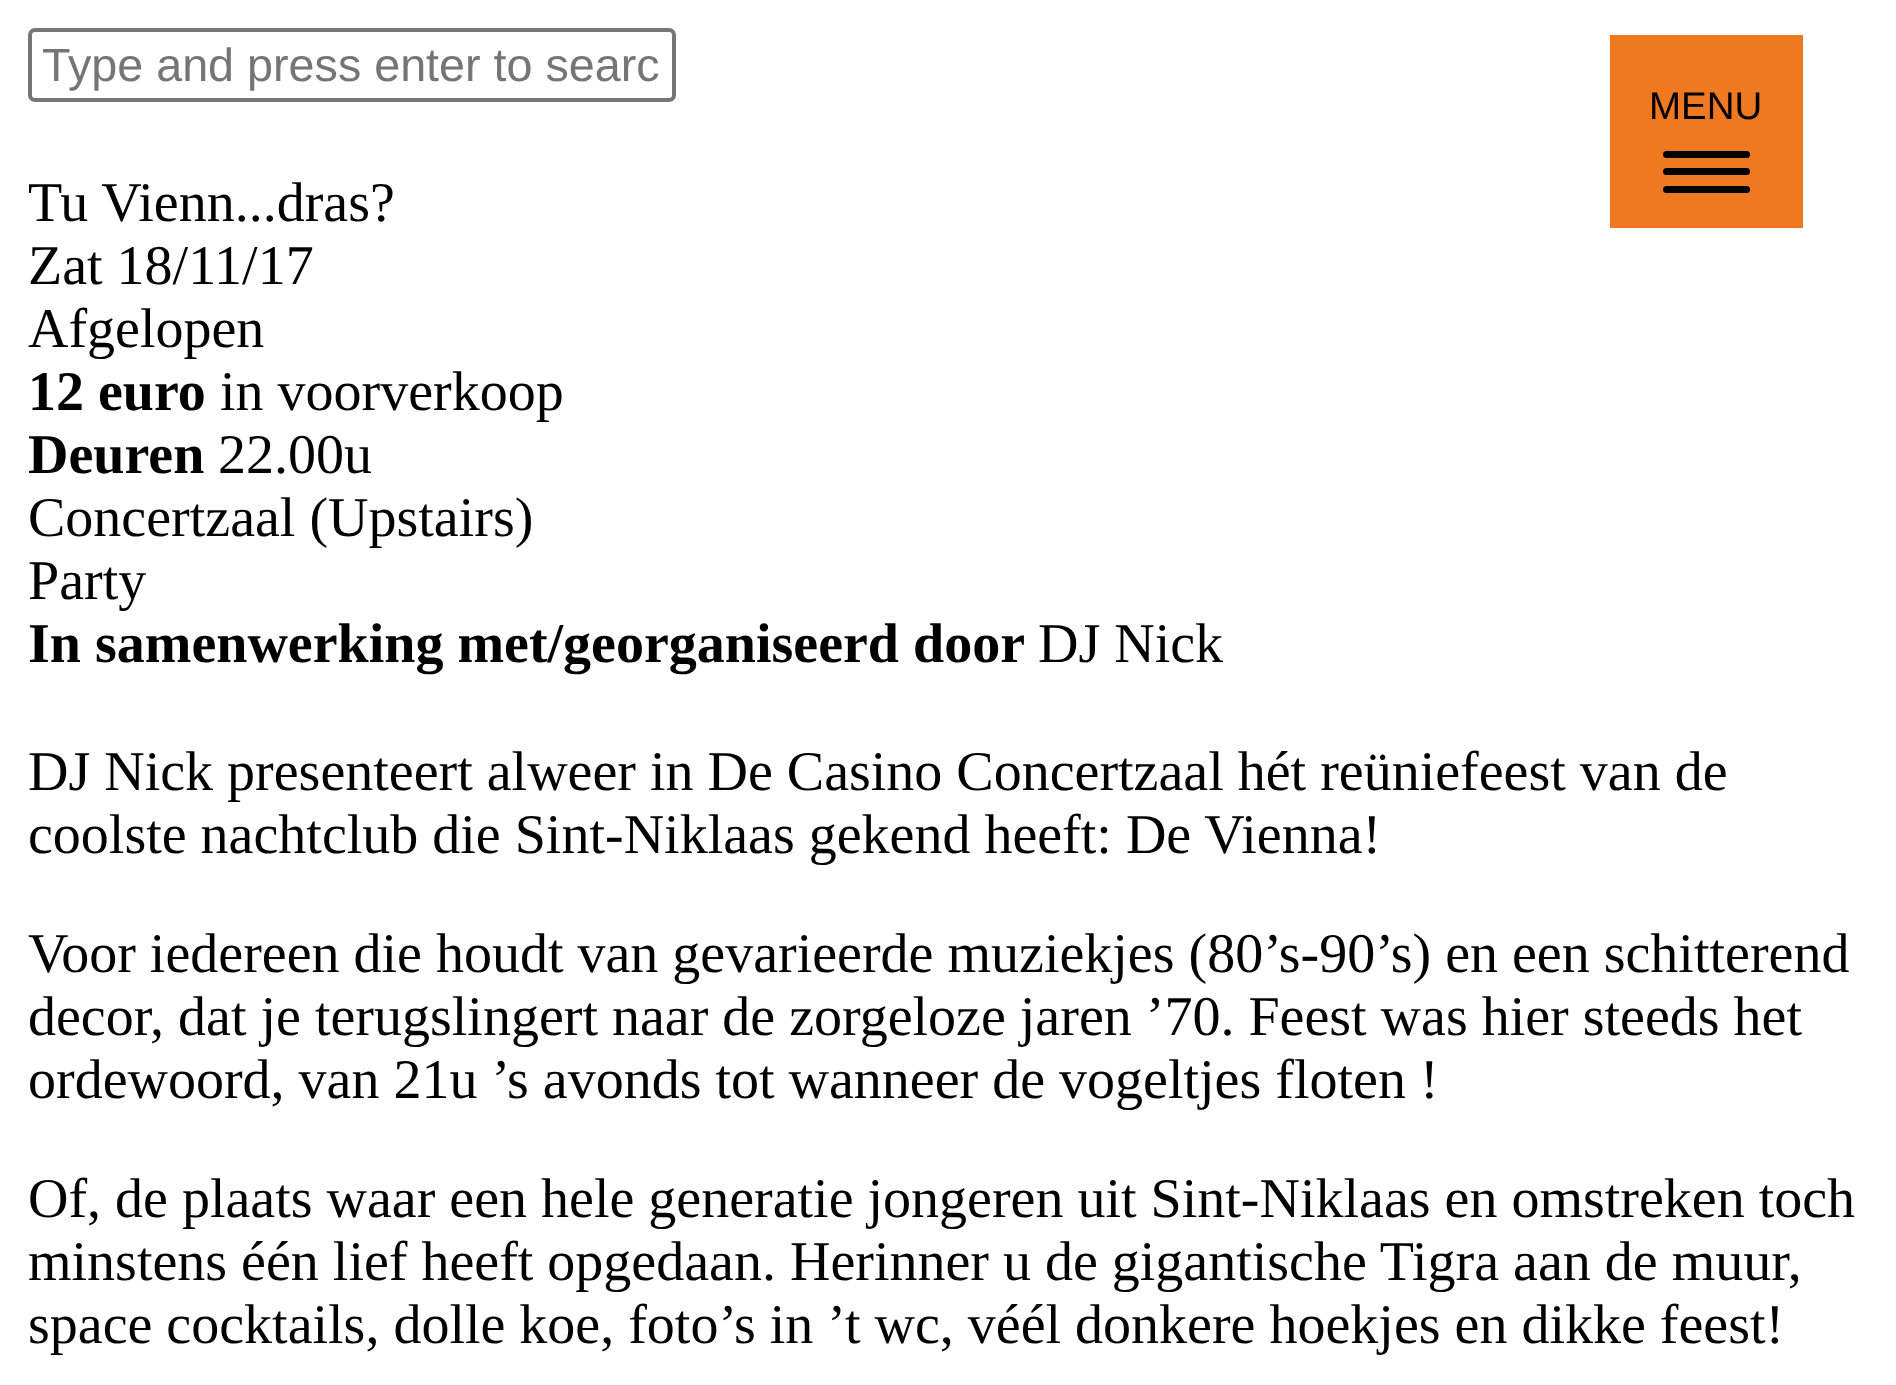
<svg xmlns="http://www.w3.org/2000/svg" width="1896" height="1385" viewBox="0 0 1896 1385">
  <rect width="100%" height="100%" fill="#ffffff"/>
  <rect x="30" y="30" width="644" height="70" rx="5" fill="none" stroke="#767676" stroke-width="4"/>
  <text x="42" y="81" font-family="Liberation Sans" font-size="46.7" fill="#757575">Type and press enter to searc</text>
  <rect x="1610" y="35" width="193" height="193" fill="#ef7920"/>
  <text x="1649" y="119" font-family="Liberation Sans" font-size="38.5" fill="#000000">MENU</text>
  <rect x="1663" y="168" width="87" height="7" rx="3.5" fill="#000000"/>
  <rect x="1663" y="151" width="87" height="7" rx="3.5" fill="#000000"/>
  <rect x="1663" y="186" width="87" height="7" rx="3.5" fill="#000000"/>
  <text x="28" y="221" font-family="Liberation Serif" font-size="56" fill="#000000">Tu Vienn...dras?</text>
  <text x="28" y="284" font-family="Liberation Serif" font-size="56" fill="#000000">Zat 18/11/17</text>
  <text x="28" y="347" font-family="Liberation Serif" font-size="56" fill="#000000">Afgelopen</text>
  <text x="28" y="410" font-family="Liberation Serif" font-size="56" font-weight="bold" fill="#000000">12 euro</text>
  <text x="220" y="410" font-family="Liberation Serif" font-size="56" fill="#000000">in voorverkoop</text>
  <text x="28" y="473" font-family="Liberation Serif" font-size="56" font-weight="bold" fill="#000000">Deuren</text>
  <text x="218" y="473" font-family="Liberation Serif" font-size="56" fill="#000000">22.00u</text>
  <text x="28" y="536" font-family="Liberation Serif" font-size="56" fill="#000000">Concertzaal (Upstairs)</text>
  <text x="28" y="599" font-family="Liberation Serif" font-size="56" fill="#000000">Party</text>
  <text x="28" y="662" font-family="Liberation Serif" font-size="56" font-weight="bold" fill="#000000">In samenwerking met/georganiseerd door</text>
  <text x="1038" y="662" font-family="Liberation Serif" font-size="56" fill="#000000">DJ Nick</text>
  <text x="28" y="790" font-family="Liberation Serif" font-size="56" fill="#000000">DJ Nick presenteert alweer in De Casino Concertzaal hét reüniefeest van de</text>
  <text x="28" y="853" font-family="Liberation Serif" font-size="56" fill="#000000">coolste nachtclub die Sint-Niklaas gekend heeft: De Vienna!</text>
  <text x="28" y="972" font-family="Liberation Serif" font-size="56" fill="#000000">Voor iedereen die houdt van gevarieerde muziekjes (80’s-90’s) en een schitterend</text>
  <text x="28" y="1035" font-family="Liberation Serif" font-size="56" fill="#000000">decor, dat je terugslingert naar de zorgeloze jaren ’70. Feest was hier steeds het</text>
  <text x="28" y="1098" font-family="Liberation Serif" font-size="56" fill="#000000">ordewoord, van 21u ’s avonds tot wanneer de vogeltjes floten !</text>
  <text x="28" y="1217" font-family="Liberation Serif" font-size="56" fill="#000000">Of, de plaats waar een hele generatie jongeren uit Sint-Niklaas en omstreken toch</text>
  <text x="28" y="1280" font-family="Liberation Serif" font-size="56" fill="#000000">minstens één lief heeft opgedaan. Herinner u de gigantische Tigra aan de muur,</text>
  <text x="28" y="1343" font-family="Liberation Serif" font-size="56" fill="#000000">space cocktails, dolle koe, foto’s in ’t wc, véél donkere hoekjes en dikke feest!</text>
</svg>
